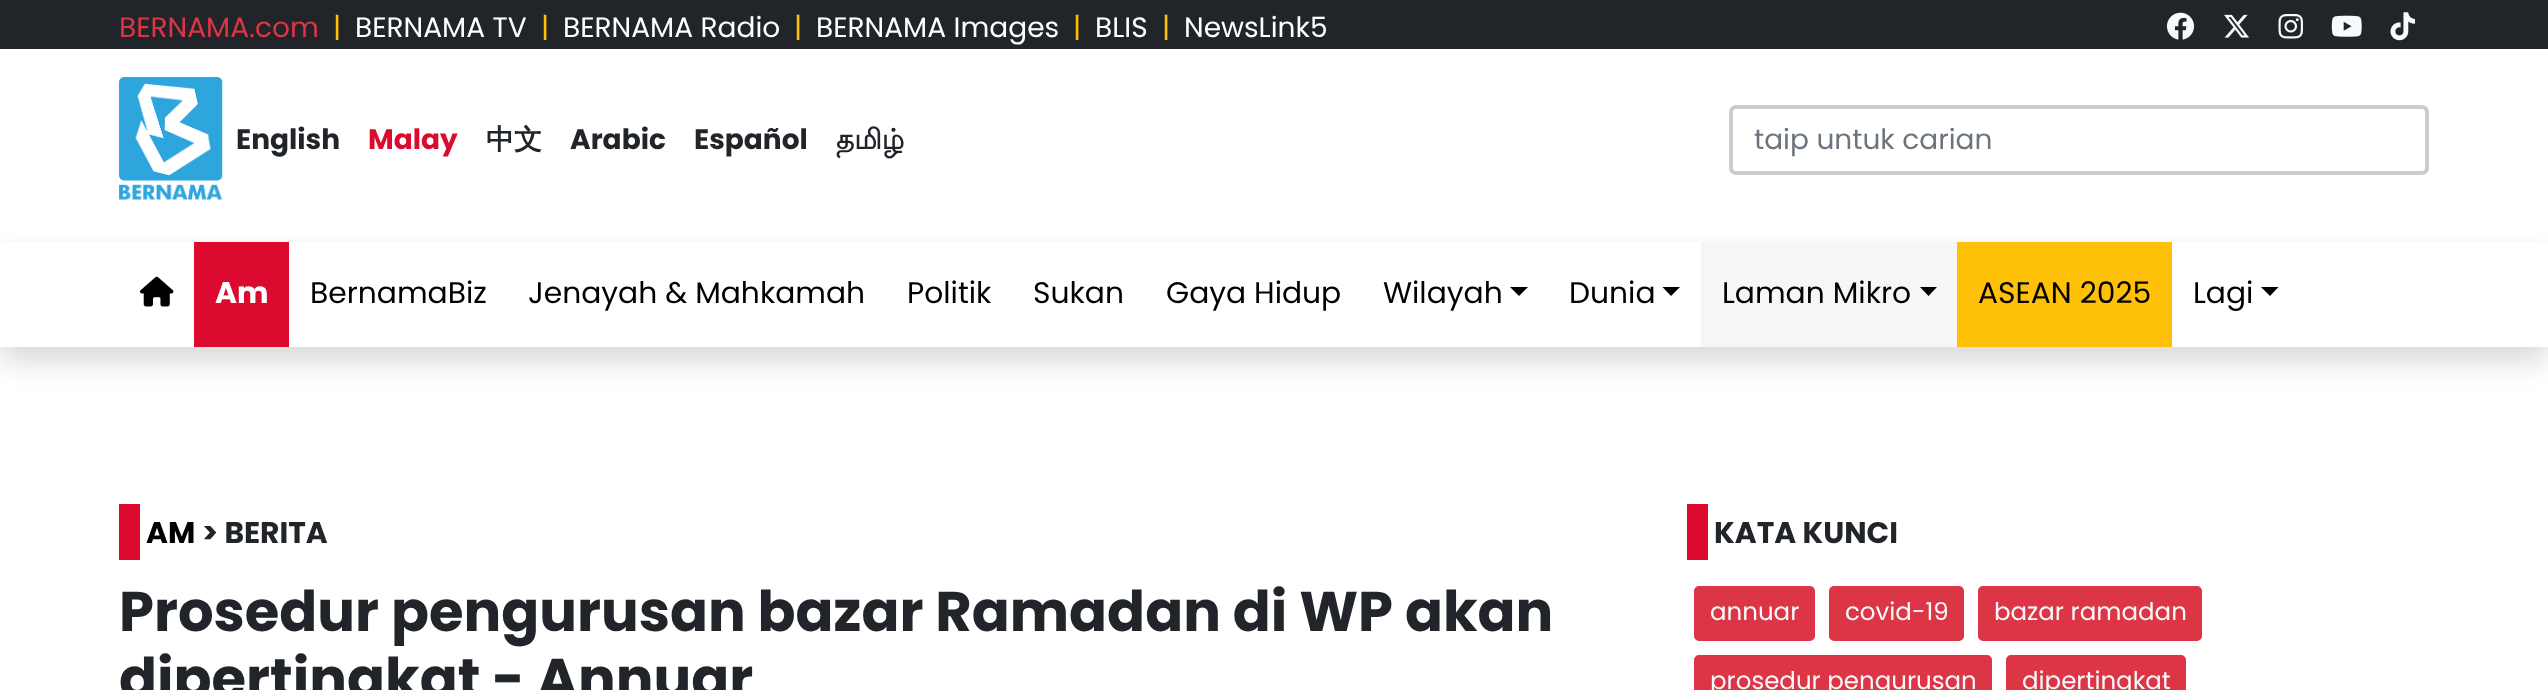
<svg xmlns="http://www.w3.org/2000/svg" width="2548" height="690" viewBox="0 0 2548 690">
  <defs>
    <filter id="blur1" x="-50%" y="-200%" width="200%" height="500%"><feGaussianBlur stdDeviation="14"/></filter>
  </defs>
  <rect width="100%" height="100%" fill="#ffffff"/>
  <rect x="0" y="0" width="2548" height="49" fill="#212529"/>
  <text x="119" y="37" font-family="Poppins" font-size="28" fill="#dc3545">BERNAMA.com</text>
  <text x="333" y="37" font-family="Poppins" font-size="28" fill="#ffc107">|</text>
  <text x="355" y="37" font-family="Poppins" font-size="28" fill="#ffffff">BERNAMA TV</text>
  <text x="541" y="37" font-family="Poppins" font-size="28" fill="#ffc107">|</text>
  <text x="563" y="37" font-family="Poppins" font-size="28" fill="#ffffff">BERNAMA Radio</text>
  <text x="794" y="37" font-family="Poppins" font-size="28" fill="#ffc107">|</text>
  <text x="816" y="37" font-family="Poppins" font-size="28" fill="#ffffff">BERNAMA Images</text>
  <text x="1073" y="37" font-family="Poppins" font-size="28" fill="#ffc107">|</text>
  <text x="1095" y="37" font-family="Poppins" font-size="28" fill="#ffffff">BLIS</text>
  <text x="1162" y="37" font-family="Poppins" font-size="28" fill="#ffc107">|</text>
  <text x="1184" y="37" font-family="Poppins" font-size="28" fill="#ffffff">NewsLink5</text>
  <image x="2166" y="12" width="29" height="28" href="img1.png"/>
  <image x="2224" y="14" width="25" height="24" href="img2.png"/>
  <image x="2278" y="14" width="25" height="25" href="img3.png"/>
  <image x="2331" y="15" width="31" height="22" href="img4.png"/>
  <image x="2390" y="12" width="25" height="29" href="img5.png"/>
  <image x="119" y="77" width="104" height="123" href="img6.png"/>
  <text x="236" y="149" font-family="Poppins" font-size="28" font-weight="bold" fill="#212529">English</text>
  <text x="368" y="149" font-family="Poppins" font-size="28" font-weight="bold" fill="#dd0a30">Malay</text>
  <text x="486" y="149" font-family="WenQuanYi Zen Hei" font-size="28" font-weight="bold" fill="#212529">中文</text>
  <text x="570" y="149" font-family="Poppins" font-size="28" font-weight="bold" fill="#212529">Arabic</text>
  <text x="694" y="149" font-family="Poppins" font-size="28" font-weight="bold" fill="#212529">Español</text>
  <text x="836" y="149" font-family="Lohit Tamil" font-size="28" font-weight="bold" fill="#212529">தமிழ்</text>
  <rect x="1731" y="107" width="696" height="66" rx="5" fill="none" stroke="#cccccc" stroke-width="4"/>
  <text x="1754" y="149" font-family="Poppins" font-size="28" fill="#6c757d">taip untuk carian</text>
  <rect x="0" y="256" width="2548" height="105" fill="#000000" fill-opacity="0.15" filter="url(#blur1)"/>
  <rect x="0" y="242" width="2548" height="105" fill="#ffffff"/>
  <image x="140" y="276" width="34" height="31" href="img7.png"/>
  <rect x="194" y="242" width="95" height="105" fill="#dd0a30"/>
  <text x="215" y="303" font-family="Poppins" font-size="29.75" font-weight="bold" fill="#ffffff">Am</text>
  <text x="310" y="303" font-family="Poppins" font-size="29.75" fill="#000000">BernamaBiz</text>
  <text x="528" y="303" font-family="Poppins" font-size="29.75" fill="#000000">Jenayah &amp; Mahkamah</text>
  <text x="907" y="303" font-family="Poppins" font-size="29.75" fill="#000000">Politik</text>
  <text x="1033" y="303" font-family="Poppins" font-size="29.75" fill="#000000">Sukan</text>
  <text x="1166" y="303" font-family="Poppins" font-size="29.75" fill="#000000">Gaya Hidup</text>
  <text x="1383" y="303" font-family="Poppins" font-size="29.75" fill="#000000">Wilayah</text>
  <path d="M1510 287H1528L1519 296Z" fill="#000000"/>
  <text x="1569" y="303" font-family="Poppins" font-size="29.75" fill="#000000">Dunia</text>
  <path d="M1662.5 287H1680L1671 296Z" fill="#000000"/>
  <rect x="1701" y="242" width="256" height="105" fill="#f6f6f6"/>
  <text x="1722" y="303" font-family="Poppins" font-size="29.75" fill="#000000">Laman Mikro</text>
  <path d="M1920 287H1937L1928.5 296Z" fill="#000000"/>
  <rect x="1957" y="242" width="215" height="105" fill="#ffc107"/>
  <text x="1978" y="303" font-family="Poppins" font-size="29.75" fill="#000000">ASEAN 2025</text>
  <text x="2193" y="303" font-family="Poppins" font-size="29.75" fill="#000000">Lagi</text>
  <path d="M2261 287H2278.5L2270 296Z" fill="#000000"/>
  <rect x="119" y="504" width="21" height="56" fill="#dd0a30"/>
  <text x="146" y="543" font-family="Poppins" font-size="29.75" font-weight="bold" fill="#000000">AM</text>
  <text x="202" y="543" font-family="Poppins" font-size="29.75" font-weight="bold" fill="#212529">&gt; BERITA</text>
  <text x="119" y="631" font-family="Poppins" font-size="56" font-weight="bold" fill="#212529">Prosedur pengurusan bazar Ramadan di WP akan</text>
  <text x="119" y="698" font-family="Poppins" font-size="56" font-weight="bold" fill="#212529">dipertingkat - Annuar</text>
  <rect x="1687" y="504" width="21" height="56" fill="#dd0a30"/>
  <text x="1714" y="543" font-family="Poppins" font-size="29.75" font-weight="bold" fill="#212529">KATA KUNCI</text>
  <rect x="1695" y="587" width="119" height="53" rx="4" fill="#dc3545" stroke="#dc3545" stroke-width="2"/>
  <text x="1710" y="620" font-family="Poppins" font-size="24.5" fill="#f8f9fa">annuar</text>
  <rect x="1830" y="587" width="133" height="53" rx="4" fill="#dc3545" stroke="#dc3545" stroke-width="2"/>
  <text x="1845" y="620" font-family="Poppins" font-size="24.5" fill="#f8f9fa">covid-19</text>
  <rect x="1979" y="587" width="222" height="53" rx="4" fill="#dc3545" stroke="#dc3545" stroke-width="2"/>
  <text x="1994" y="620" font-family="Poppins" font-size="24.5" fill="#f8f9fa">bazar ramadan</text>
  <rect x="1695" y="656" width="296" height="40" rx="4" fill="#dc3545" stroke="#dc3545" stroke-width="2"/>
  <text x="1710" y="689" font-family="Poppins" font-size="24.5" fill="#f8f9fa">prosedur pengurusan</text>
  <rect x="2007" y="656" width="178" height="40" rx="4" fill="#dc3545" stroke="#dc3545" stroke-width="2"/>
  <text x="2022" y="689" font-family="Poppins" font-size="24.5" fill="#f8f9fa">dipertingkat</text>
</svg>
